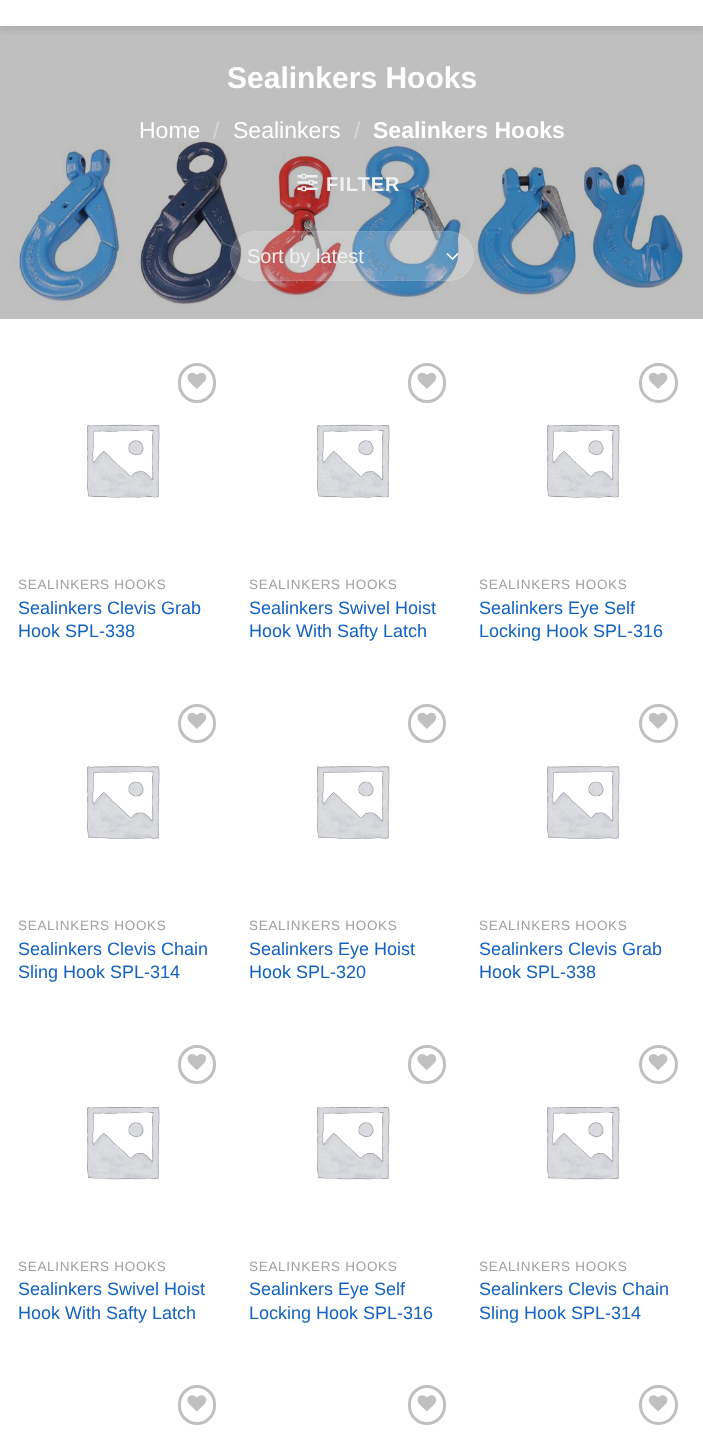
<svg xmlns="http://www.w3.org/2000/svg" width="703" height="1447" viewBox="0 0 703 1447">
  <defs>
    <clipPath id="clip1"><rect x="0" y="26" width="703" height="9"/></clipPath>
    <filter id="blur1" x="-50%" y="-200%" width="200%" height="500%"><feGaussianBlur stdDeviation="6"/></filter>
  </defs>
  <rect width="100%" height="100%" fill="#ffffff"/>
  <image x="0" y="26" width="703" height="293" href="img1.png"/>
  <g clip-path="url(#clip1)">
    <rect x="1" y="-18" width="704" height="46" fill="#000000" fill-opacity="0.15" filter="url(#blur1)"/>
  </g>
  <text x="227" y="88" font-family="Liberation Sans" font-size="30" font-weight="bold" fill="#ffffff">Sealinkers Hooks</text>
  <text x="139" y="138" font-family="Liberation Sans" font-size="23" fill="#ffffff">Home</text>
  <text x="213" y="138" font-family="Liberation Sans" font-size="23" fill="#d6d6d6">/</text>
  <text x="233" y="138" font-family="Liberation Sans" font-size="23" fill="#ffffff">Sealinkers</text>
  <text x="354" y="138" font-family="Liberation Sans" font-size="23" fill="#d6d6d6">/</text>
  <text x="373" y="138" font-family="Liberation Sans" font-size="23" font-weight="bold" fill="#ffffff">Sealinkers Hooks</text>
  <image x="297" y="173" width="21" height="19" href="img2.png"/>
  <text x="326" y="191" font-family="Liberation Sans" font-size="20" font-weight="bold" letter-spacing="1" fill="#f1f1f1">FILTER</text>
  <rect x="230" y="231" width="244" height="50" rx="25" fill="#ffffff" fill-opacity="0.2"/>
  <path d="M447.5 254L452.5 259L457.5 254" fill="none" stroke="#ffffff" stroke-width="1.7" stroke-linecap="round" stroke-linejoin="round"/>
  <rect x="230.5" y="231.5" width="243" height="49" rx="24.5" fill="none" stroke="#ffffff" stroke-opacity="0.09"/>
  <text x="247" y="263" font-family="Liberation Sans" font-size="20" fill="#f1f1f1">Sort by latest</text>
  <rect x="179.5" y="364.5" width="35" height="37" rx="17.5" fill="none" stroke="#c0c0c0" stroke-width="3"/>
  <image x="187" y="372" width="20" height="17" href="img3.png"/>
  <image x="87" y="424" width="73" height="74" href="img4.png"/>
  <text x="18" y="589" font-family="Liberation Sans" font-size="13.5" letter-spacing="0.7" fill="#a0a0a0">SEALINKERS HOOKS</text>
  <text x="18" y="614" font-family="Liberation Sans" font-size="18" fill="#1362c2">Sealinkers Clevis Grab</text>
  <text x="18" y="637" font-family="Liberation Sans" font-size="18" fill="#1362c2">Hook SPL-338</text>
  <rect x="409.5" y="364.5" width="35" height="37" rx="17.5" fill="none" stroke="#c0c0c0" stroke-width="3"/>
  <image x="417" y="372" width="20" height="17" href="img3.png"/>
  <image x="317" y="424" width="73" height="74" href="img4.png"/>
  <text x="249" y="589" font-family="Liberation Sans" font-size="13.5" letter-spacing="0.7" fill="#a0a0a0">SEALINKERS HOOKS</text>
  <text x="249" y="614" font-family="Liberation Sans" font-size="18" fill="#1362c2">Sealinkers Swivel Hoist</text>
  <text x="249" y="637" font-family="Liberation Sans" font-size="18" fill="#1362c2">Hook With Safty Latch</text>
  <rect x="640.5" y="364.5" width="36" height="37" rx="18" fill="none" stroke="#c0c0c0" stroke-width="3"/>
  <image x="648" y="372" width="20" height="17" href="img5.png"/>
  <image x="547" y="424" width="73" height="74" href="img4.png"/>
  <text x="479" y="589" font-family="Liberation Sans" font-size="13.5" letter-spacing="0.7" fill="#a0a0a0">SEALINKERS HOOKS</text>
  <text x="479" y="614" font-family="Liberation Sans" font-size="18" fill="#1362c2">Sealinkers Eye Self</text>
  <text x="479" y="637" font-family="Liberation Sans" font-size="18" fill="#1362c2">Locking Hook SPL-316</text>
  <rect x="179.5" y="705.5" width="35" height="36" rx="17.5" fill="none" stroke="#c0c0c0" stroke-width="3"/>
  <image x="187" y="712" width="20" height="17" href="img3.png"/>
  <image x="87" y="766" width="73" height="73" href="img6.png"/>
  <text x="18" y="930" font-family="Liberation Sans" font-size="13.5" letter-spacing="0.7" fill="#a0a0a0">SEALINKERS HOOKS</text>
  <text x="18" y="955" font-family="Liberation Sans" font-size="18" fill="#1362c2">Sealinkers Clevis Chain</text>
  <text x="18" y="978" font-family="Liberation Sans" font-size="18" fill="#1362c2">Sling Hook SPL-314</text>
  <rect x="409.5" y="705.5" width="35" height="36" rx="17.5" fill="none" stroke="#c0c0c0" stroke-width="3"/>
  <image x="417" y="712" width="20" height="17" href="img3.png"/>
  <image x="317" y="766" width="73" height="73" href="img6.png"/>
  <text x="249" y="930" font-family="Liberation Sans" font-size="13.5" letter-spacing="0.7" fill="#a0a0a0">SEALINKERS HOOKS</text>
  <text x="249" y="955" font-family="Liberation Sans" font-size="18" fill="#1362c2">Sealinkers Eye Hoist</text>
  <text x="249" y="978" font-family="Liberation Sans" font-size="18" fill="#1362c2">Hook SPL-320</text>
  <circle cx="658.5" cy="723.5" r="18" fill="none" stroke="#c0c0c0" stroke-width="3"/>
  <image x="648" y="712" width="20" height="17" href="img5.png"/>
  <image x="547" y="766" width="73" height="73" href="img6.png"/>
  <text x="479" y="930" font-family="Liberation Sans" font-size="13.5" letter-spacing="0.7" fill="#a0a0a0">SEALINKERS HOOKS</text>
  <text x="479" y="955" font-family="Liberation Sans" font-size="18" fill="#1362c2">Sealinkers Clevis Grab</text>
  <text x="479" y="978" font-family="Liberation Sans" font-size="18" fill="#1362c2">Hook SPL-338</text>
  <rect x="179.5" y="1046.5" width="35" height="36" rx="17.5" fill="none" stroke="#c0c0c0" stroke-width="3"/>
  <image x="187" y="1054" width="20" height="16" href="img7.png"/>
  <image x="87" y="1106" width="73" height="74" href="img8.png"/>
  <text x="18" y="1271" font-family="Liberation Sans" font-size="13.5" letter-spacing="0.7" fill="#a0a0a0">SEALINKERS HOOKS</text>
  <text x="18" y="1295" font-family="Liberation Sans" font-size="18" fill="#1362c2">Sealinkers Swivel Hoist</text>
  <text x="18" y="1319" font-family="Liberation Sans" font-size="18" fill="#1362c2">Hook With Safty Latch</text>
  <rect x="409.5" y="1046.5" width="35" height="36" rx="17.5" fill="none" stroke="#c0c0c0" stroke-width="3"/>
  <image x="417" y="1054" width="20" height="16" href="img7.png"/>
  <image x="317" y="1106" width="73" height="74" href="img8.png"/>
  <text x="249" y="1271" font-family="Liberation Sans" font-size="13.5" letter-spacing="0.7" fill="#a0a0a0">SEALINKERS HOOKS</text>
  <text x="249" y="1295" font-family="Liberation Sans" font-size="18" fill="#1362c2">Sealinkers Eye Self</text>
  <text x="249" y="1319" font-family="Liberation Sans" font-size="18" fill="#1362c2">Locking Hook SPL-316</text>
  <circle cx="658.5" cy="1064.5" r="18" fill="none" stroke="#c0c0c0" stroke-width="3"/>
  <image x="648" y="1054" width="20" height="16" href="img9.png"/>
  <image x="547" y="1106" width="73" height="74" href="img8.png"/>
  <text x="479" y="1271" font-family="Liberation Sans" font-size="13.5" letter-spacing="0.7" fill="#a0a0a0">SEALINKERS HOOKS</text>
  <text x="479" y="1295" font-family="Liberation Sans" font-size="18" fill="#1362c2">Sealinkers Clevis Chain</text>
  <text x="479" y="1319" font-family="Liberation Sans" font-size="18" fill="#1362c2">Sling Hook SPL-314</text>
  <rect x="179.5" y="1386.5" width="35" height="37" rx="17.5" fill="none" stroke="#c0c0c0" stroke-width="3"/>
  <image x="187" y="1395" width="20" height="17" href="img10.png"/>
  <rect x="409.5" y="1386.5" width="35" height="37" rx="17.5" fill="none" stroke="#c0c0c0" stroke-width="3"/>
  <image x="417" y="1395" width="20" height="17" href="img10.png"/>
  <rect x="640.5" y="1386.5" width="36" height="37" rx="18" fill="none" stroke="#c0c0c0" stroke-width="3"/>
  <image x="648" y="1395" width="20" height="17" href="img11.png"/>
</svg>
